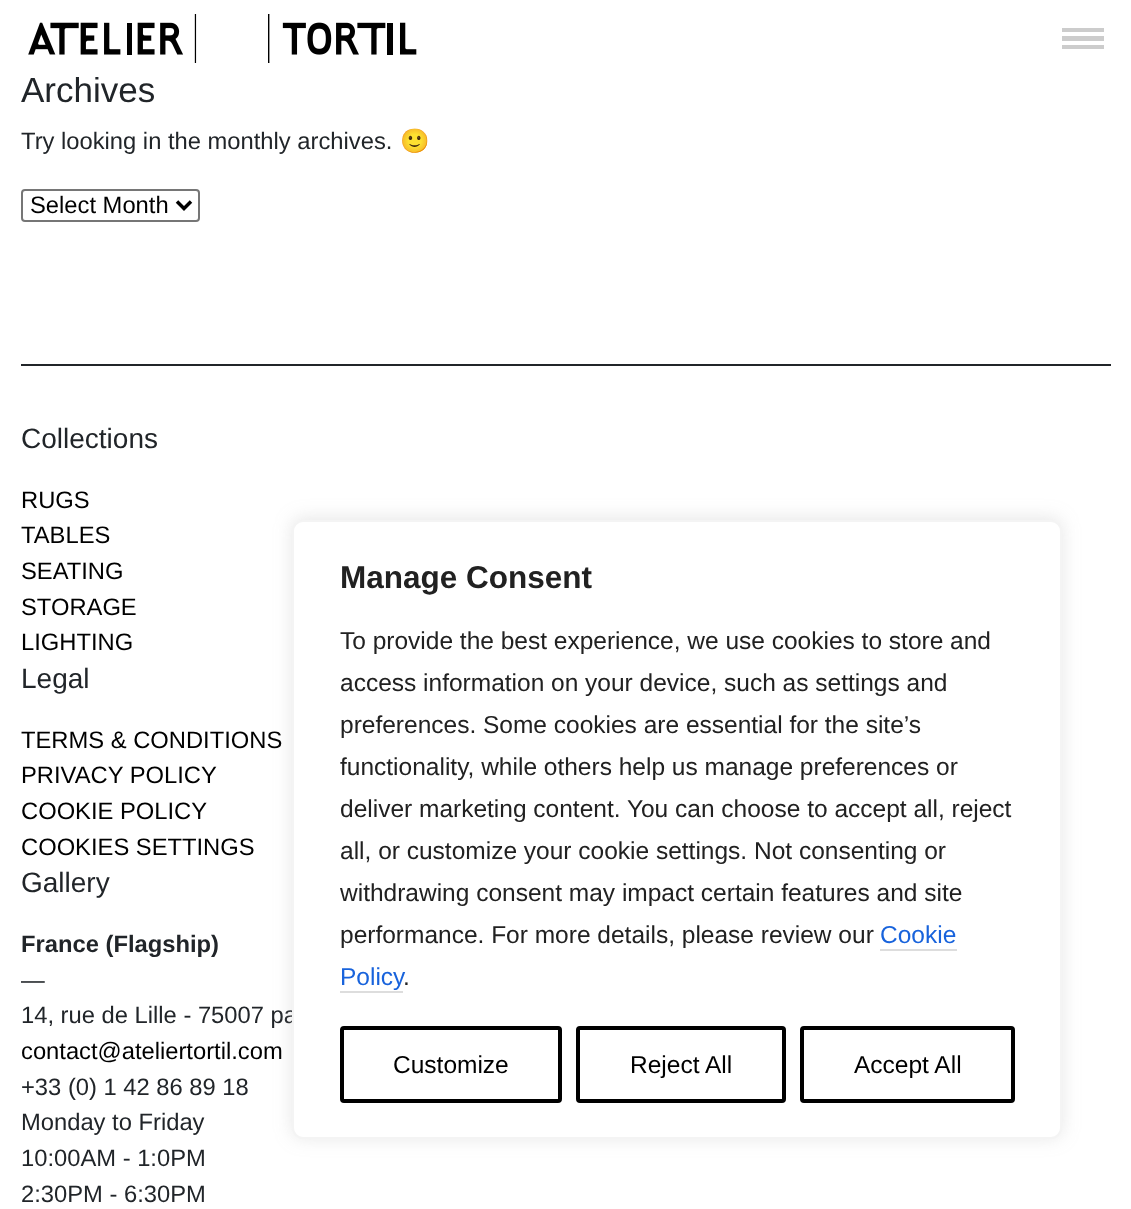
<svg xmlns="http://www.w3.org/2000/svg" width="1131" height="1209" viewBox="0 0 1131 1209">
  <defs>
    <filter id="blur1" x="-50%" y="-200%" width="200%" height="500%"><feGaussianBlur stdDeviation="9"/></filter>
  </defs>
  <rect width="100%" height="100%" fill="#ffffff"/>
  <text x="21" y="102" font-family="Liberation Sans" font-size="35" fill="#212529">Archives</text>
  <rect x="75" y="76" width="24" height="1" fill="#ffffff"/>
  <image x="28" y="14" width="389" height="49" href="img1.png"/>
  <path d="M1104 32H1062V28H1104ZM1104 36H1062V41H1104ZM1104 45H1062V49H1104Z" fill="#cccccc"/>
  <text x="21" y="149" font-family="Liberation Sans" font-size="23.75" fill="#212529">Try looking in the monthly archives.</text>
  <text x="400" y="149" font-family="Noto Color Emoji" font-size="23.75" fill="#212529">🙂</text>
  <rect x="22" y="190" width="177" height="31" rx="3" fill="none" stroke="#767676" stroke-width="2"/>
  <path d="M177 201.5L184 208.5L191 201.5" fill="none" stroke="#000000" stroke-width="3.5"/>
  <text x="30" y="213" font-family="Liberation Sans" font-size="23.75" fill="#000000">Select Month</text>
  <rect x="21" y="364" width="1090" height="2" fill="#212529"/>
  <text x="21" y="448" font-family="Liberation Sans" font-size="28" fill="#212529">Collections</text>
  <text x="21" y="508" font-family="Liberation Sans" font-size="23.75" fill="#000000">RUGS</text>
  <text x="21" y="543" font-family="Liberation Sans" font-size="23.75" fill="#000000">TABLES</text>
  <text x="21" y="579" font-family="Liberation Sans" font-size="23.75" fill="#000000">SEATING</text>
  <text x="21" y="615" font-family="Liberation Sans" font-size="23.75" fill="#000000">STORAGE</text>
  <text x="21" y="650" font-family="Liberation Sans" font-size="23.75" fill="#000000">LIGHTING</text>
  <text x="21" y="688" font-family="Liberation Sans" font-size="28" fill="#212529">Legal</text>
  <text x="21" y="748" font-family="Liberation Sans" font-size="23.75" fill="#000000">TERMS &amp; CONDITIONS</text>
  <text x="21" y="783" font-family="Liberation Sans" font-size="23.75" fill="#000000">PRIVACY POLICY</text>
  <text x="21" y="819" font-family="Liberation Sans" font-size="23.75" fill="#000000">COOKIE POLICY</text>
  <text x="21" y="855" font-family="Liberation Sans" font-size="23.75" fill="#000000">COOKIES SETTINGS</text>
  <text x="21" y="892" font-family="Liberation Sans" font-size="28" fill="#212529">Gallery</text>
  <text x="21" y="952" font-family="Liberation Sans" font-size="23.75" font-weight="bold" fill="#212529">France (Flagship)</text>
  <text x="21" y="988" font-family="Liberation Sans" font-size="23.75" fill="#212529">—</text>
  <text x="21" y="1023" font-family="Liberation Sans" font-size="23.75" fill="#212529">14, rue de Lille - 75007 pa</text>
  <text x="21" y="1059" font-family="Liberation Sans" font-size="23.75" fill="#000000">contact@ateliertortil.com</text>
  <text x="21" y="1095" font-family="Liberation Sans" font-size="23.75" fill="#212529">+33 (0) 1 42 86 89 18</text>
  <text x="21" y="1130" font-family="Liberation Sans" font-size="23.75" fill="#212529">Monday to Friday</text>
  <text x="21" y="1166" font-family="Liberation Sans" font-size="23.75" fill="#212529">10:00AM - 1:0PM</text>
  <text x="21" y="1202" font-family="Liberation Sans" font-size="23.75" fill="#212529">2:30PM - 6:30PM</text>
  <rect x="292" y="518" width="770" height="620" rx="11" fill="#acabab" fill-opacity="0.3" filter="url(#blur1)"/>
  <rect x="293" y="521" width="768" height="617" rx="10" fill="#ffffff" stroke="#f4f4f4" stroke-width="2"/>
  <text x="340" y="588" font-family="Liberation Sans" font-size="31.5" font-weight="bold" fill="#212121">Manage Consent</text>
  <text x="340" y="649" font-family="Liberation Sans" font-size="24.5" fill="#212121">To provide the best experience, we use cookies to store and</text>
  <text x="340" y="691" font-family="Liberation Sans" font-size="24.5" fill="#212121">access information on your device, such as settings and</text>
  <text x="340" y="733" font-family="Liberation Sans" font-size="24.5" fill="#212121">preferences. Some cookies are essential for the site’s</text>
  <text x="340" y="775" font-family="Liberation Sans" font-size="24.5" fill="#212121">functionality, while others help us manage preferences or</text>
  <text x="340" y="817" font-family="Liberation Sans" font-size="24.5" fill="#212121">deliver marketing content. You can choose to accept all, reject</text>
  <text x="340" y="859" font-family="Liberation Sans" font-size="24.5" fill="#212121">all, or customize your cookie settings. Not consenting or</text>
  <text x="340" y="901" font-family="Liberation Sans" font-size="24.5" fill="#212121">withdrawing consent may impact certain features and site</text>
  <text x="340" y="943" font-family="Liberation Sans" font-size="24.5" fill="#212121">performance. For more details, please review our</text>
  <text x="880" y="943" font-family="Liberation Sans" font-size="24.5" fill="#1863dc">Cookie</text>
  <rect x="880" y="949" width="77" height="2" fill="#dddddd"/>
  <text x="340" y="985" font-family="Liberation Sans" font-size="24.5" fill="#1863dc">Policy</text>
  <rect x="340" y="991" width="63" height="2" fill="#dddddd"/>
  <text x="403" y="985" font-family="Liberation Sans" font-size="24.5" fill="#212121">.</text>
  <rect x="342" y="1028" width="218" height="73" rx="2" fill="none" stroke="#000000" stroke-width="4"/>
  <text x="393" y="1073" font-family="Liberation Sans" font-size="24.5" fill="#000000">Customize</text>
  <rect x="578" y="1028" width="206" height="73" rx="2" fill="none" stroke="#000000" stroke-width="4"/>
  <text x="630" y="1073" font-family="Liberation Sans" font-size="24.5" fill="#000000">Reject All</text>
  <rect x="802" y="1028" width="211" height="73" rx="2" fill="none" stroke="#000000" stroke-width="4"/>
  <text x="854" y="1073" font-family="Liberation Sans" font-size="24.5" fill="#000000">Accept All</text>
</svg>
